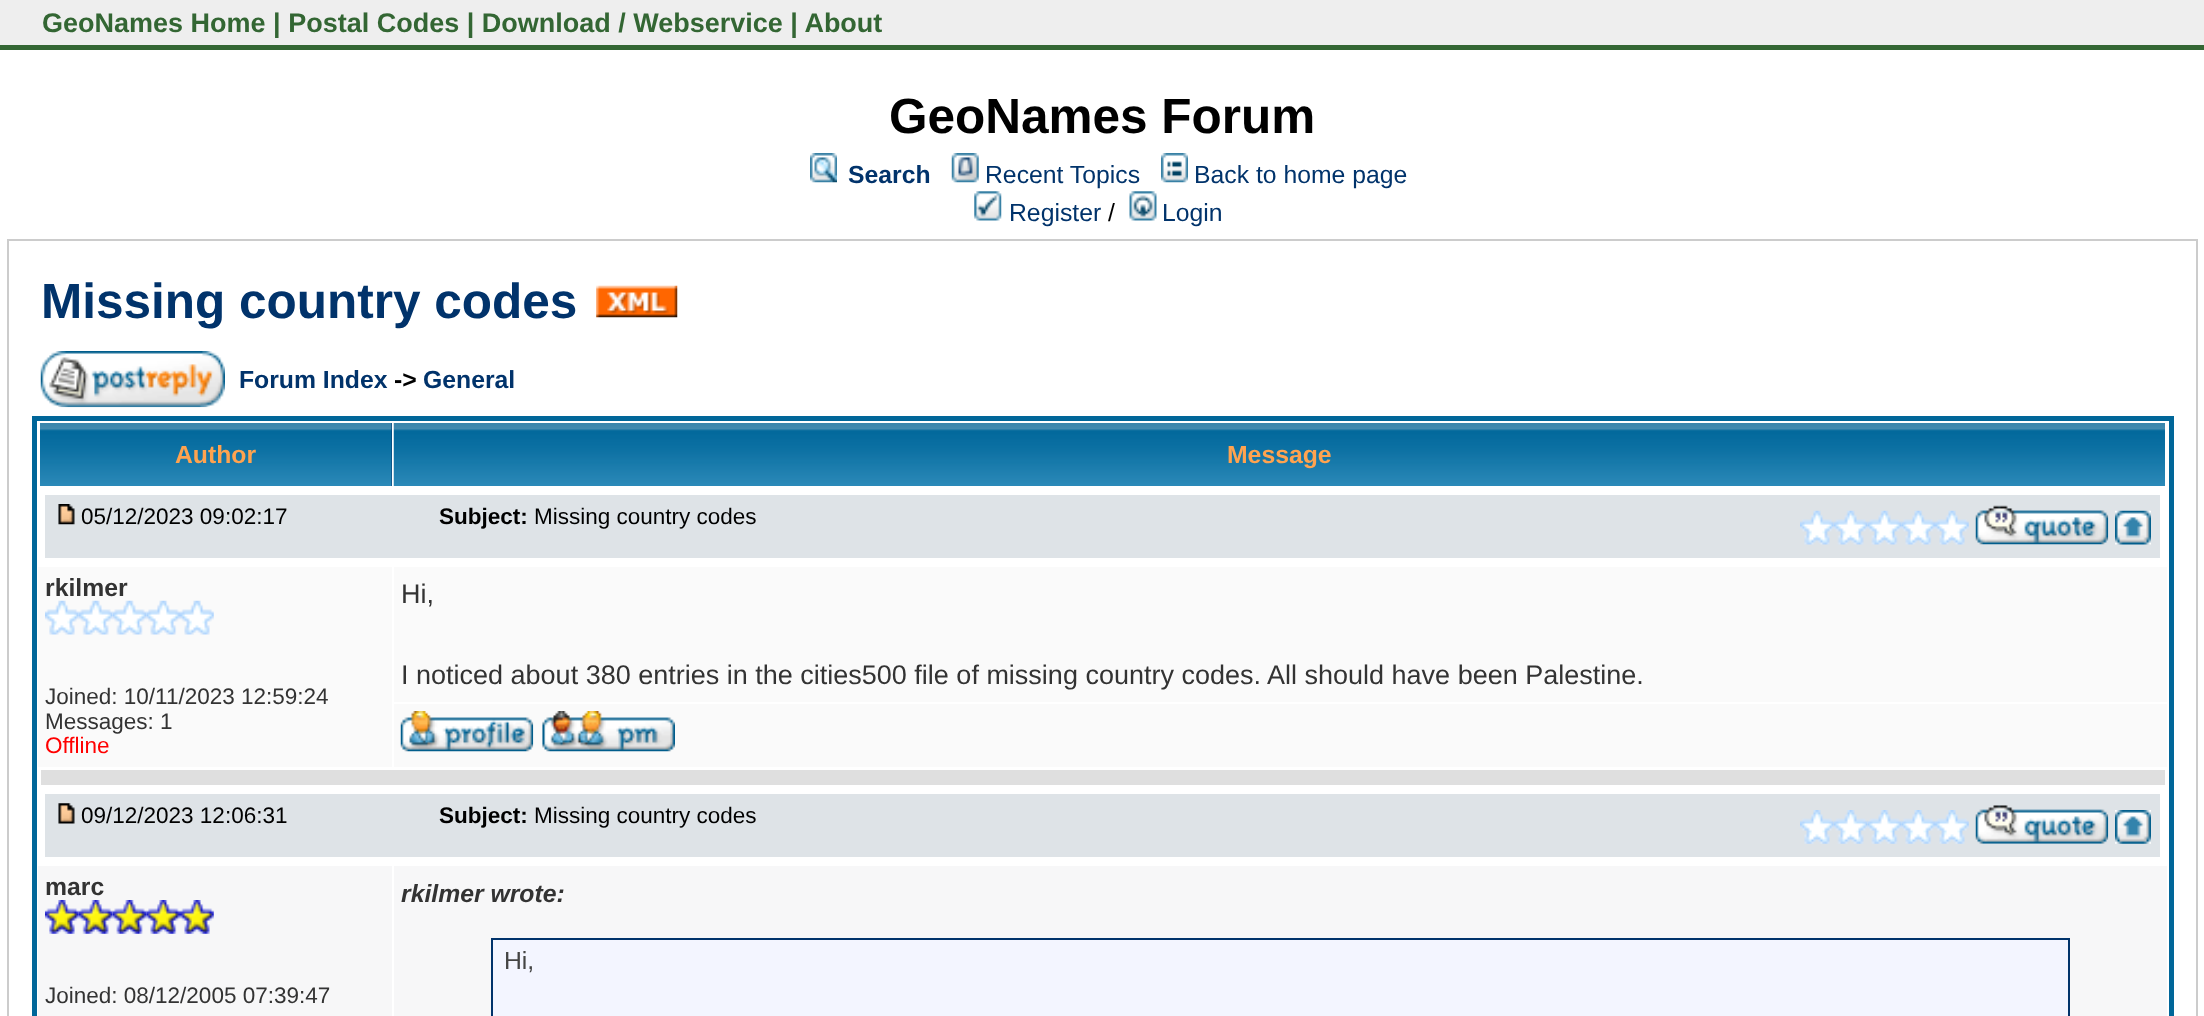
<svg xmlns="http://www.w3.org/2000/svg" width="2204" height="1016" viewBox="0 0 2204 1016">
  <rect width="100%" height="100%" fill="#ffffff"/>
  <rect x="0" y="0" width="2204" height="45" fill="#eeeeee"/>
  <rect x="0" y="45" width="2204" height="5" fill="#336633"/>
  <text x="42" y="32" font-family="Liberation Sans" font-size="27" font-weight="bold" fill="#336633">GeoNames Home | Postal Codes | Download / Webservice | About</text>
  <text x="889" y="133" font-family="Liberation Sans" font-size="49.5" font-weight="bold" fill="#000000">GeoNames Forum</text>
  <image x="810" y="153" width="27" height="30" href="img1.png"/>
  <text x="848" y="183" font-family="Liberation Sans" font-size="24.75" font-weight="bold" fill="#01336b">Search</text>
  <image x="951" y="153" width="28" height="30" href="img2.png"/>
  <text x="985" y="183" font-family="Liberation Sans" font-size="24.75" fill="#01336b">Recent Topics</text>
  <image x="1161" y="153" width="27" height="30" href="img3.png"/>
  <text x="1194" y="183" font-family="Liberation Sans" font-size="24.75" fill="#01336b">Back to home page</text>
  <image x="974" y="191" width="28" height="30" href="img4.png"/>
  <text x="1009" y="221" font-family="Liberation Sans" font-size="24.75" fill="#01336b">Register</text>
  <text x="1108" y="221" font-family="Liberation Sans" font-size="24.75" fill="#000000">/</text>
  <image x="1129" y="191" width="28" height="30" href="img5.png"/>
  <text x="1162" y="221" font-family="Liberation Sans" font-size="24.75" fill="#01336b">Login</text>
  <rect x="8" y="240" width="2189" height="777" fill="none" stroke="#cccccc" stroke-width="2"/>
  <text x="41" y="318" font-family="Liberation Sans" font-size="49.5" font-weight="bold" fill="#01336b">Missing country codes</text>
  <image x="596" y="285" width="82" height="33" href="img6.png"/>
  <image x="40" y="351" width="185" height="57" href="img7.png"/>
  <text x="239" y="388" font-family="Liberation Sans" font-size="24.75" font-weight="bold" fill="#01336b">Forum Index</text>
  <text x="394" y="388" font-family="Liberation Sans" font-size="24.75" font-weight="bold" fill="#000000">-&gt;</text>
  <text x="423" y="388" font-family="Liberation Sans" font-size="24.75" font-weight="bold" fill="#01336b">General</text>
  <rect x="34.5" y="418.5" width="2137" height="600" fill="none" stroke="#006699" stroke-width="5"/>
  <rect x="391" y="423" width="1" height="63" fill="#01336b"/>
  <image x="40" y="423" width="352" height="63" href="img8.png"/>
  <text x="175" y="463" font-family="Liberation Sans" font-size="24.75" font-weight="bold" fill="#ffa34f">Author</text>
  <image x="393" y="423" width="1772" height="63" href="img9.png"/>
  <text x="1227" y="463" font-family="Liberation Sans" font-size="24.75" font-weight="bold" fill="#ffa34f">Message</text>
  <rect x="45" y="495" width="2115" height="63" fill="#dee3e7"/>
  <image x="58" y="504" width="17" height="21" href="img10.png"/>
  <text x="81" y="524" font-family="Liberation Sans" font-size="22.5" fill="#000000">05/12/2023 09:02:17</text>
  <text x="439" y="524" font-family="Liberation Sans" font-size="22.5" font-weight="bold" fill="#000000">Subject:</text>
  <text x="534" y="524" font-family="Liberation Sans" font-size="22.5" fill="#000000">Missing country codes</text>
  <image x="1800" y="510" width="34" height="35" href="img11.png"/>
  <image x="1834" y="510" width="34" height="35" href="img12.png"/>
  <image x="1867" y="510" width="35" height="35" href="img13.png"/>
  <image x="1901" y="510" width="34" height="35" href="img14.png"/>
  <image x="1935" y="510" width="34" height="35" href="img15.png"/>
  <image x="1975" y="505" width="134" height="40" href="img16.png"/>
  <image x="2115" y="510" width="36" height="35" href="img17.png"/>
  <rect x="38" y="567" width="354" height="200" fill="#fafafa"/>
  <text x="45" y="596" font-family="Liberation Sans" font-size="24.75" font-weight="bold" fill="#333333">rkilmer</text>
  <image x="45" y="600" width="34" height="35" href="img18.png"/>
  <image x="78" y="600" width="35" height="35" href="img19.png"/>
  <image x="112" y="600" width="35" height="35" href="img20.png"/>
  <image x="146" y="600" width="34" height="35" href="img21.png"/>
  <image x="180" y="600" width="34" height="35" href="img22.png"/>
  <text x="45" y="704" font-family="Liberation Sans" font-size="22.5" fill="#333333">Joined: 10/11/2023 12:59:24</text>
  <text x="45" y="729" font-family="Liberation Sans" font-size="22.5" fill="#333333">Messages: 1</text>
  <text x="45" y="753" font-family="Liberation Sans" font-size="22.5" fill="#ff0000">Offline</text>
  <rect x="394" y="567" width="1773" height="135" fill="#fafafa"/>
  <text x="401" y="603" font-family="Liberation Sans" font-size="27" fill="#333333">Hi,</text>
  <text x="401" y="684" font-family="Liberation Sans" font-size="27" fill="#333333">I noticed about 380 entries in the cities500 file of missing country codes. All should have been Palestine.</text>
  <rect x="394" y="704" width="1773" height="63" fill="#fafafa"/>
  <image x="400" y="711" width="134" height="41" href="img23.png"/>
  <image x="542" y="711" width="133" height="41" href="img24.png"/>
  <rect x="41" y="770" width="2124" height="15" fill="#dfdfdf"/>
  <rect x="45" y="794" width="2115" height="63" fill="#dee3e7"/>
  <image x="58" y="803" width="17" height="21" href="img25.png"/>
  <text x="81" y="823" font-family="Liberation Sans" font-size="22.5" fill="#000000">09/12/2023 12:06:31</text>
  <text x="439" y="823" font-family="Liberation Sans" font-size="22.5" font-weight="bold" fill="#000000">Subject:</text>
  <text x="534" y="823" font-family="Liberation Sans" font-size="22.5" fill="#000000">Missing country codes</text>
  <image x="1800" y="810" width="34" height="34" href="img26.png"/>
  <image x="1834" y="810" width="34" height="34" href="img27.png"/>
  <image x="1867" y="810" width="35" height="34" href="img28.png"/>
  <image x="1901" y="810" width="34" height="34" href="img29.png"/>
  <image x="1935" y="810" width="34" height="34" href="img30.png"/>
  <image x="1975" y="805" width="134" height="39" href="img31.png"/>
  <image x="2115" y="810" width="36" height="34" href="img32.png"/>
  <rect x="38" y="866" width="354" height="150" fill="#f7f7f8"/>
  <text x="45" y="895" font-family="Liberation Sans" font-size="24.75" font-weight="bold" fill="#333333">marc</text>
  <image x="45" y="900" width="34" height="34" href="img33.png"/>
  <image x="78" y="900" width="35" height="34" href="img34.png"/>
  <image x="112" y="900" width="35" height="34" href="img35.png"/>
  <image x="146" y="900" width="34" height="34" href="img36.png"/>
  <image x="180" y="900" width="34" height="34" href="img37.png"/>
  <text x="45" y="1003" font-family="Liberation Sans" font-size="22.5" fill="#333333">Joined: 08/12/2005 07:39:47</text>
  <rect x="394" y="866" width="1773" height="150" fill="#f7f7f8"/>
  <text x="401" y="902" font-family="Liberation Sans" font-size="24.75" font-weight="bold" font-style="italic" fill="#333333">rkilmer wrote:</text>
  <rect x="492" y="939" width="1577" height="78" fill="#f3f5ff" stroke="#01336b" stroke-width="2"/>
  <text x="504" y="969" font-family="Liberation Sans" font-size="24.75" fill="#444444">Hi,</text>
</svg>
